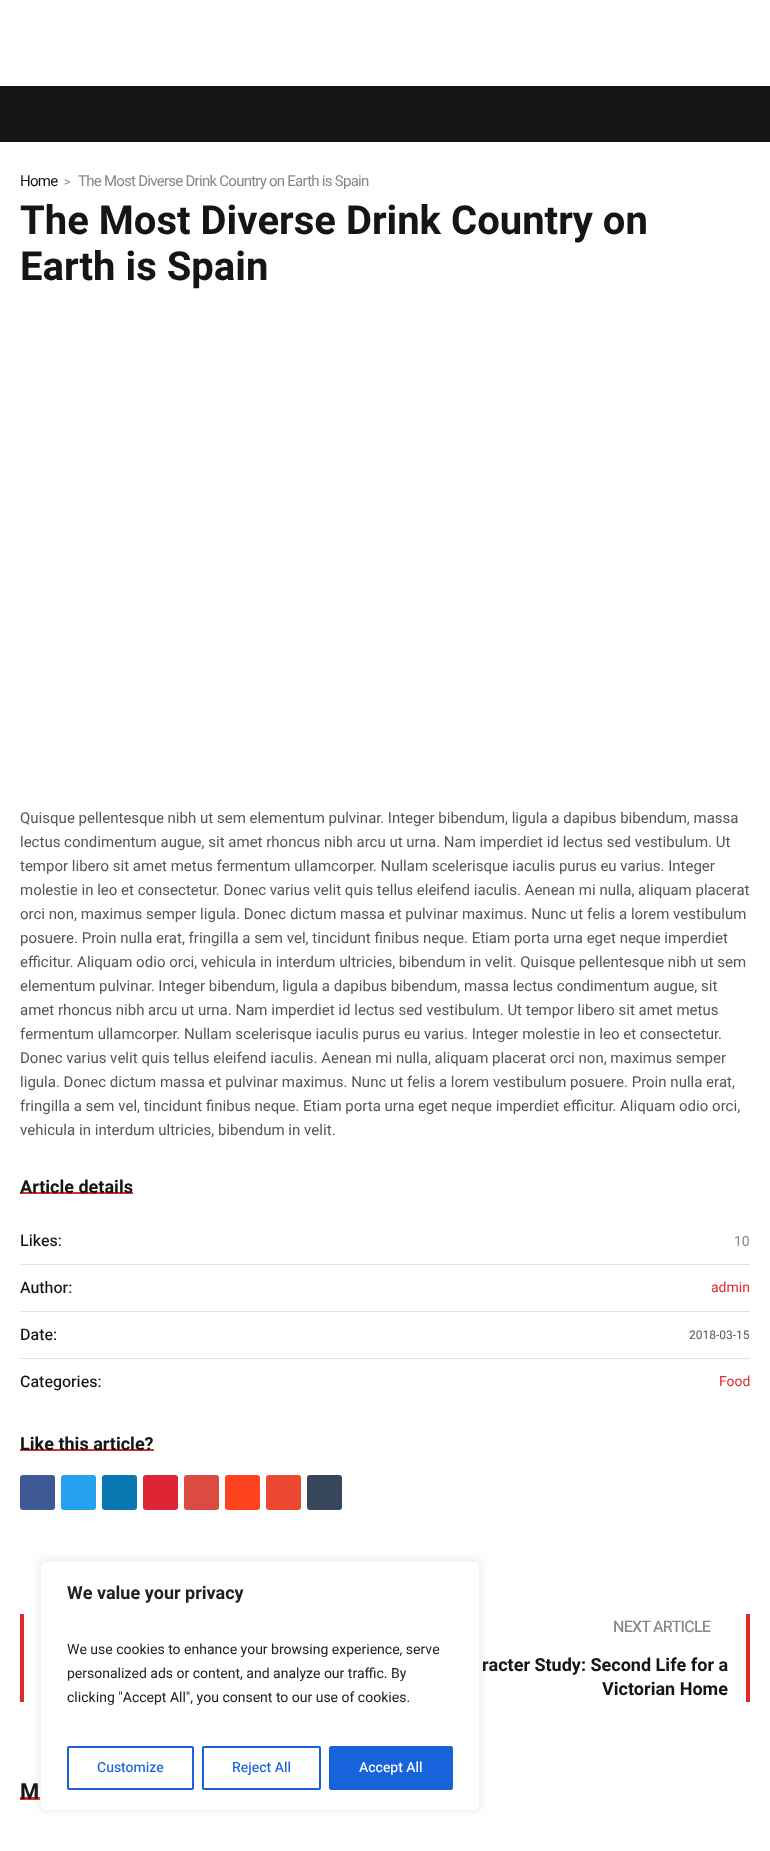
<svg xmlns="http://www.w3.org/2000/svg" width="770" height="1851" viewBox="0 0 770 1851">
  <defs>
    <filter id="blur1" x="-50%" y="-200%" width="200%" height="500%"><feGaussianBlur stdDeviation="5"/></filter>
  </defs>
  <rect width="100%" height="100%" fill="#ffffff"/>
  <rect x="0" y="86" width="770" height="56" fill="#151515"/>
  <text x="20" y="186" font-family="Heebo" font-size="15" letter-spacing="-0.75" fill="#151515">Home</text>
  <text x="64" y="186" font-family="Heebo" font-size="13" letter-spacing="-0.75" fill="#878787">&gt;</text>
  <text x="78" y="186" font-family="Heebo" font-size="15" letter-spacing="-0.75" fill="#878787">The Most Diverse Drink Country on Earth is Spain</text>
  <text x="20" y="234" font-family="Heebo" font-size="40" font-weight="bold" fill="#151515">The Most Diverse Drink Country on</text>
  <text x="20" y="280" font-family="Heebo" font-size="40" font-weight="bold" fill="#151515">Earth is Spain</text>
  <text x="20" y="823" font-family="Heebo" font-size="15" fill="#565656">Quisque pellentesque nibh ut sem elementum pulvinar. Integer bibendum, ligula a dapibus bibendum, massa</text>
  <text x="20" y="847" font-family="Heebo" font-size="15" fill="#565656">lectus condimentum augue, sit amet rhoncus nibh arcu ut urna. Nam imperdiet id lectus sed vestibulum. Ut</text>
  <text x="20" y="871" font-family="Heebo" font-size="15" fill="#565656">tempor libero sit amet metus fermentum ullamcorper. Nullam scelerisque iaculis purus eu varius. Integer</text>
  <text x="20" y="895" font-family="Heebo" font-size="15" fill="#565656">molestie in leo et consectetur. Donec varius velit quis tellus eleifend iaculis. Aenean mi nulla, aliquam placerat</text>
  <text x="20" y="919" font-family="Heebo" font-size="15" fill="#565656">orci non, maximus semper ligula. Donec dictum massa et pulvinar maximus. Nunc ut felis a lorem vestibulum</text>
  <text x="20" y="943" font-family="Heebo" font-size="15" fill="#565656">posuere. Proin nulla erat, fringilla a sem vel, tincidunt finibus neque. Etiam porta urna eget neque imperdiet</text>
  <text x="20" y="967" font-family="Heebo" font-size="15" fill="#565656">efficitur. Aliquam odio orci, vehicula in interdum ultricies, bibendum in velit. Quisque pellentesque nibh ut sem</text>
  <text x="20" y="991" font-family="Heebo" font-size="15" fill="#565656">elementum pulvinar. Integer bibendum, ligula a dapibus bibendum, massa lectus condimentum augue, sit</text>
  <text x="20" y="1015" font-family="Heebo" font-size="15" fill="#565656">amet rhoncus nibh arcu ut urna. Nam imperdiet id lectus sed vestibulum. Ut tempor libero sit amet metus</text>
  <text x="20" y="1039" font-family="Heebo" font-size="15" fill="#565656">fermentum ullamcorper. Nullam scelerisque iaculis purus eu varius. Integer molestie in leo et consectetur.</text>
  <text x="20" y="1063" font-family="Heebo" font-size="15" fill="#565656">Donec varius velit quis tellus eleifend iaculis. Aenean mi nulla, aliquam placerat orci non, maximus semper</text>
  <text x="20" y="1087" font-family="Heebo" font-size="15" fill="#565656">ligula. Donec dictum massa et pulvinar maximus. Nunc ut felis a lorem vestibulum posuere. Proin nulla erat,</text>
  <text x="20" y="1111" font-family="Heebo" font-size="15" fill="#565656">fringilla a sem vel, tincidunt finibus neque. Etiam porta urna eget neque imperdiet efficitur. Aliquam odio orci,</text>
  <text x="20" y="1135" font-family="Heebo" font-size="15" fill="#565656">vehicula in interdum ultricies, bibendum in velit.</text>
  <rect x="20" y="1192" width="113" height="2" fill="#e12b2b"/>
  <text x="20" y="1193" font-family="Heebo" font-size="18" font-weight="bold" fill="#151515">Article details</text>
  <rect x="20" y="1264" width="730" height="1" fill="#e3e3e3"/>
  <text x="20" y="1246" font-family="Heebo" font-size="16" font-weight="500" fill="#151515">Likes:</text>
  <text x="734" y="1246" font-family="Heebo" font-size="14" fill="#878787">10</text>
  <rect x="20" y="1311" width="730" height="1" fill="#e3e3e3"/>
  <text x="20" y="1293" font-family="Heebo" font-size="16" font-weight="500" fill="#151515">Author:</text>
  <text x="711" y="1292" font-family="Heebo" font-size="14" fill="#e12b2b">admin</text>
  <rect x="20" y="1358" width="730" height="1" fill="#e3e3e3"/>
  <text x="20" y="1340" font-family="Heebo" font-size="16" font-weight="500" fill="#151515">Date:</text>
  <text x="689" y="1339" font-family="Heebo" font-size="12" fill="#565656">2018-03-15</text>
  <text x="20" y="1387" font-family="Heebo" font-size="16" font-weight="500" fill="#151515">Categories:</text>
  <text x="719" y="1386" font-family="Heebo" font-size="14" fill="#e12b2b">Food</text>
  <rect x="20" y="1449" width="134" height="2" fill="#e12b2b"/>
  <text x="20" y="1450" font-family="Heebo" font-size="18" font-weight="bold" fill="#151515">Like this article?</text>
  <rect x="20" y="1475" width="35" height="35" rx="3" fill="#3d5996"/>
  <rect x="61" y="1475" width="35" height="35" rx="3" fill="#24a1ef"/>
  <rect x="102" y="1475" width="35" height="35" rx="3" fill="#0977b2"/>
  <rect x="143" y="1475" width="35" height="35" rx="3" fill="#df2433"/>
  <rect x="184" y="1475" width="35" height="35" rx="3" fill="#dc4b3f"/>
  <rect x="225" y="1475" width="35" height="35" rx="3" fill="#fe441e"/>
  <rect x="266" y="1475" width="35" height="35" rx="3" fill="#ea492f"/>
  <rect x="307" y="1475" width="35" height="35" rx="3" fill="#36465b"/>
  <rect x="20" y="1614" width="4" height="88" fill="#e12b2b"/>
  <rect x="746" y="1614" width="4" height="88" fill="#e12b2b"/>
  <text x="613" y="1632" font-family="Heebo" font-size="16" font-weight="500" letter-spacing="-0.75" fill="#878787">NEXT ARTICLE</text>
  <text x="482" y="1671" font-family="Heebo" font-size="18" font-weight="bold" fill="#151515">racter Study: Second Life for a</text>
  <text x="602" y="1695" font-family="Heebo" font-size="18" font-weight="bold" fill="#151515">Victorian Home</text>
  <rect x="20" y="1797" width="20" height="3" fill="#e12b2b"/>
  <text x="20" y="1799" font-family="Heebo" font-size="22" font-weight="bold" fill="#151515">M</text>
  <rect x="40" y="1560" width="440" height="250" rx="6" fill="#acabab" fill-opacity="0.3" filter="url(#blur1)"/>
  <rect x="40.5" y="1561.5" width="439" height="249" rx="5.5" fill="#ffffff" stroke="#f4f4f4"/>
  <text x="67" y="1599" font-family="Heebo" font-size="18" font-weight="bold" fill="#212121">We value your privacy</text>
  <text x="67" y="1654" font-family="Heebo" font-size="14" fill="#212121">We use cookies to enhance your browsing experience, serve</text>
  <text x="67" y="1678" font-family="Heebo" font-size="14" fill="#212121">personalized ads or content, and analyze our traffic. By</text>
  <text x="67" y="1702" font-family="Heebo" font-size="14" fill="#212121">clicking "Accept All", you consent to our use of cookies.</text>
  <rect x="68" y="1747" width="125" height="42" rx="1" fill="none" stroke="#1863dc" stroke-width="2"/>
  <text x="97" y="1772" font-family="Heebo" font-size="14" font-weight="500" fill="#1863dc">Customize</text>
  <rect x="203" y="1747" width="117" height="42" rx="1" fill="none" stroke="#1863dc" stroke-width="2"/>
  <text x="232" y="1772" font-family="Heebo" font-size="14" font-weight="500" fill="#1863dc">Reject All</text>
  <rect x="330" y="1747" width="122" height="42" rx="1" fill="#1863dc" stroke="#1863dc" stroke-width="2"/>
  <text x="359" y="1772" font-family="Heebo" font-size="14" font-weight="500" fill="#ffffff">Accept All</text>
</svg>
